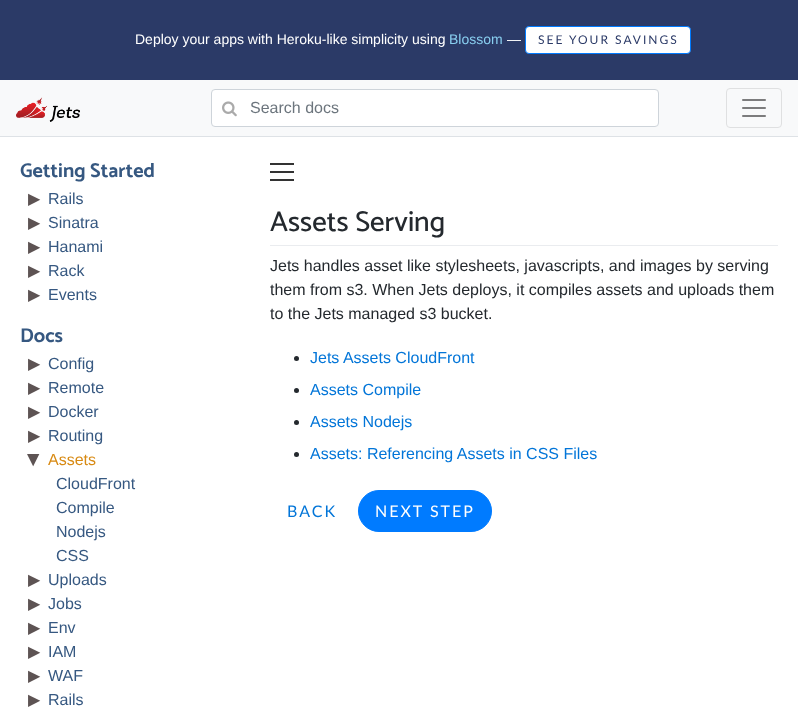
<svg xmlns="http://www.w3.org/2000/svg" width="798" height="713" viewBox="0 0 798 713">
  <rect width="100%" height="100%" fill="#ffffff"/>
  <rect x="0" y="0" width="798" height="80" fill="#2b3a67"/>
  <text x="135" y="44" font-family="Liberation Sans" font-size="14" fill="#ffffff">Deploy your apps with Heroku-like simplicity using</text>
  <text x="449" y="44" font-family="Liberation Sans" font-size="14" fill="#89cff0">Blossom</text>
  <text x="507" y="44" font-family="Liberation Sans" font-size="14" fill="#ffffff">—</text>
  <rect x="525.5" y="26.5" width="165" height="27" rx="3.5" fill="#ffffff" stroke="#007bff"/>
  <text x="538" y="44" font-family="Lato" font-size="12" letter-spacing="2" fill="#2b3a67">SEE YOUR SAVINGS</text>
  <rect x="0" y="80" width="798" height="56" fill="#f8f9fa"/>
  <rect x="0" y="136" width="798" height="1" fill="#dee2e6"/>
  <image x="16" y="97" width="64" height="25" href="img1.png"/>
  <rect x="211.5" y="89.5" width="447" height="37" rx="3.5" fill="#ffffff" stroke="#ced4da"/>
  <image x="222" y="101" width="15" height="16" href="img2.png"/>
  <text x="250" y="113" font-family="Liberation Sans" font-size="16" fill="#6c757d">Search docs</text>
  <rect x="726.5" y="88.5" width="55" height="39" rx="3.5" fill="none" stroke="#dfe0e1"/>
  <image x="742" y="99" width="24" height="18" href="img3.png"/>
  <text x="20" y="177" font-family="Catamaran" font-size="20" font-weight="bold" fill="#365881">Getting Started</text>
  <text x="28" y="204" font-family="DejaVu Sans" font-size="16" fill="#5d5353">▶</text>
  <text x="48" y="204" font-family="Liberation Sans" font-size="16" fill="#365881">Rails</text>
  <text x="28" y="228" font-family="DejaVu Sans" font-size="16" fill="#5d5353">▶</text>
  <text x="48" y="228" font-family="Liberation Sans" font-size="16" fill="#365881">Sinatra</text>
  <text x="28" y="252" font-family="DejaVu Sans" font-size="16" fill="#5d5353">▶</text>
  <text x="48" y="252" font-family="Liberation Sans" font-size="16" fill="#365881">Hanami</text>
  <text x="28" y="276" font-family="DejaVu Sans" font-size="16" fill="#5d5353">▶</text>
  <text x="48" y="276" font-family="Liberation Sans" font-size="16" fill="#365881">Rack</text>
  <text x="28" y="300" font-family="DejaVu Sans" font-size="16" fill="#5d5353">▶</text>
  <text x="48" y="300" font-family="Liberation Sans" font-size="16" fill="#365881">Events</text>
  <text x="20" y="342" font-family="Catamaran" font-size="20" font-weight="bold" fill="#365881">Docs</text>
  <text x="28" y="369" font-family="DejaVu Sans" font-size="16" fill="#5d5353">▶</text>
  <text x="48" y="369" font-family="Liberation Sans" font-size="16" fill="#365881">Config</text>
  <text x="28" y="393" font-family="DejaVu Sans" font-size="16" fill="#5d5353">▶</text>
  <text x="48" y="393" font-family="Liberation Sans" font-size="16" fill="#365881">Remote</text>
  <text x="28" y="417" font-family="DejaVu Sans" font-size="16" fill="#5d5353">▶</text>
  <text x="48" y="417" font-family="Liberation Sans" font-size="16" fill="#365881">Docker</text>
  <text x="28" y="441" font-family="DejaVu Sans" font-size="16" fill="#5d5353">▶</text>
  <text x="48" y="441" font-family="Liberation Sans" font-size="16" fill="#365881">Routing</text>
  <text x="29" y="454" transform="rotate(90 29 454)" font-family="DejaVu Sans" font-size="16" fill="#5d5353">▶</text>
  <text x="48" y="465" font-family="Liberation Sans" font-size="16" fill="#d88a13">Assets</text>
  <text x="56" y="489" font-family="Liberation Sans" font-size="16" fill="#365881">CloudFront</text>
  <text x="56" y="513" font-family="Liberation Sans" font-size="16" fill="#365881">Compile</text>
  <text x="56" y="537" font-family="Liberation Sans" font-size="16" fill="#365881">Nodejs</text>
  <text x="56" y="561" font-family="Liberation Sans" font-size="16" fill="#365881">CSS</text>
  <text x="28" y="585" font-family="DejaVu Sans" font-size="16" fill="#5d5353">▶</text>
  <text x="48" y="585" font-family="Liberation Sans" font-size="16" fill="#365881">Uploads</text>
  <text x="28" y="609" font-family="DejaVu Sans" font-size="16" fill="#5d5353">▶</text>
  <text x="48" y="609" font-family="Liberation Sans" font-size="16" fill="#365881">Jobs</text>
  <text x="28" y="633" font-family="DejaVu Sans" font-size="16" fill="#5d5353">▶</text>
  <text x="48" y="633" font-family="Liberation Sans" font-size="16" fill="#365881">Env</text>
  <text x="28" y="657" font-family="DejaVu Sans" font-size="16" fill="#5d5353">▶</text>
  <text x="48" y="657" font-family="Liberation Sans" font-size="16" fill="#365881">IAM</text>
  <text x="28" y="681" font-family="DejaVu Sans" font-size="16" fill="#5d5353">▶</text>
  <text x="48" y="681" font-family="Liberation Sans" font-size="16" fill="#365881">WAF</text>
  <text x="28" y="705" font-family="DejaVu Sans" font-size="16" fill="#5d5353">▶</text>
  <text x="48" y="705" font-family="Liberation Sans" font-size="16" fill="#365881">Rails</text>
  <rect x="270" y="163" width="24" height="2" fill="#333333"/>
  <rect x="270" y="171" width="24" height="2" fill="#333333"/>
  <rect x="270" y="179" width="24" height="2" fill="#333333"/>
  <rect x="270" y="245" width="508" height="1" fill="#eaecef"/>
  <text x="270" y="231" font-family="Catamaran" font-size="28.75" font-weight="500" fill="#24292e">Assets Serving</text>
  <text x="270" y="271" font-family="Liberation Sans" font-size="16" fill="#24292e">Jets handles asset like stylesheets, javascripts, and images by serving</text>
  <text x="270" y="295" font-family="Liberation Sans" font-size="16" fill="#24292e">them from s3. When Jets deploys, it compiles assets and uploads them</text>
  <text x="270" y="319" font-family="Liberation Sans" font-size="16" fill="#24292e">to the Jets managed s3 bucket.</text>
  <circle cx="296.5" cy="358.5" r="2.5" fill="#24292e"/>
  <text x="310" y="363" font-family="Liberation Sans" font-size="16" fill="#0275d8">Jets Assets CloudFront</text>
  <circle cx="296.5" cy="390.5" r="2.5" fill="#24292e"/>
  <text x="310" y="395" font-family="Liberation Sans" font-size="16" fill="#0275d8">Assets Compile</text>
  <circle cx="296.5" cy="422.5" r="2.5" fill="#24292e"/>
  <text x="310" y="427" font-family="Liberation Sans" font-size="16" fill="#0275d8">Assets Nodejs</text>
  <circle cx="296.5" cy="454.5" r="2.5" fill="#24292e"/>
  <text x="310" y="459" font-family="Liberation Sans" font-size="16" fill="#0275d8">Assets: Referencing Assets in CSS Files</text>
  <text x="287" y="517" font-family="Lato" font-size="16" letter-spacing="2" fill="#0275d8">BACK</text>
  <rect x="358.5" y="490.5" width="133" height="41" rx="20.5" fill="#007bff" stroke="#007bff"/>
  <text x="375" y="517" font-family="Lato" font-size="16" letter-spacing="2" fill="#ffffff">NEXT STEP</text>
</svg>
